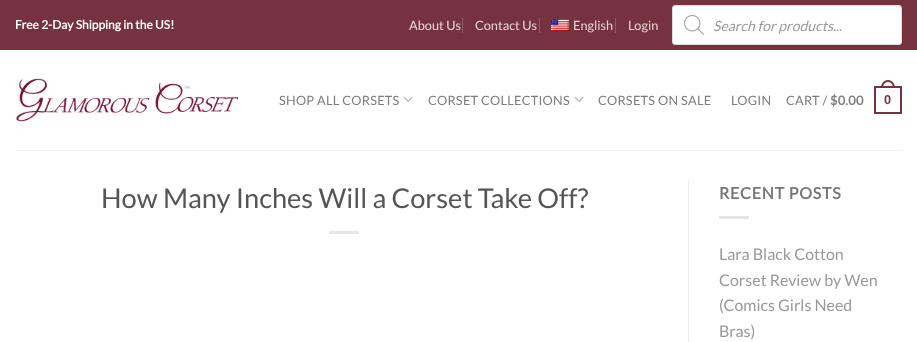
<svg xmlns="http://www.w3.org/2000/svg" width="917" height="342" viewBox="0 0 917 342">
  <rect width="100%" height="100%" fill="#ffffff"/>
  <rect x="0" y="0" width="917" height="50" fill="#76323f"/>
  <text x="15" y="29" font-family="Lato" font-size="12" font-weight="bold" fill="#ffffff">Free 2-Day Shipping in the US!</text>
  <text x="409" y="30" font-family="Lato" font-size="12.75" fill="#e4d6d9">About Us</text>
  <rect x="462" y="18" width="1" height="15" fill="#915b65"/>
  <text x="475" y="30" font-family="Lato" font-size="12.75" fill="#e4d6d9">Contact Us</text>
  <rect x="539" y="18" width="1" height="15" fill="#915b65"/>
  <image x="551" y="19" width="18" height="12" href="img1.png"/>
  <text x="573" y="30" font-family="Lato" font-size="12.75" fill="#e4d6d9">English</text>
  <rect x="615" y="18" width="1" height="15" fill="#915b65"/>
  <text x="628" y="30" font-family="Lato" font-size="12.75" fill="#e4d6d9">Login</text>
  <rect x="672.5" y="5.5" width="229" height="39" rx="2.5" fill="#ffffff" stroke="#dddddd"/>
  <image x="684" y="15" width="20" height="20" href="img2.png"/>
  <text x="713" y="31" font-family="Lato" font-size="14" font-style="italic" fill="#999999">Search for products...</text>
  <image x="16" y="78" width="222" height="44" href="img3.png"/>
  <text x="279" y="105" font-family="Lato" font-size="12.75" letter-spacing="0.25" fill="#7d7d7d">SHOP ALL CORSETS</text>
  <image x="403" y="96" width="10" height="6" href="img4.png"/>
  <text x="428" y="105" font-family="Lato" font-size="12.75" letter-spacing="0.25" fill="#7d7d7d">CORSET COLLECTIONS</text>
  <image x="574" y="96" width="10" height="6" href="img4.png"/>
  <text x="598" y="105" font-family="Lato" font-size="12.75" letter-spacing="0.25" fill="#7d7d7d">CORSETS ON SALE</text>
  <text x="731" y="105" font-family="Lato" font-size="12.75" letter-spacing="0.25" fill="#7d7d7d">LOGIN</text>
  <text x="786" y="105" font-family="Lato" font-size="12.75" letter-spacing="0.25" fill="#7d7d7d">CART /</text>
  <text x="830" y="105" font-family="Lato" font-size="12.75" font-weight="bold" letter-spacing="0.25" fill="#7d7d7d">$0.00</text>
  <rect x="875" y="87" width="26" height="26" fill="none" stroke="#76323f" stroke-width="2"/>
  <path d="M888 80C892.5 80 895 84 895 88H881C881 84 883.5 80 888 80ZM888 82C891.5 82 893 85 893 88H883C883 85 884.5 82 888 82Z" fill="#76323f" fill-rule="evenodd"/>
  <text x="884" y="104" font-family="Liberation Sans" font-size="12.75" font-weight="bold" letter-spacing="0.25" fill="#76323f">0</text>
  <rect x="15" y="150" width="887" height="1" fill="#f1f1f1"/>
  <text x="101" y="208" font-family="Lato" font-size="27.25" fill="#555555">How Many Inches Will a Corset Take Off?</text>
  <rect x="329" y="231" width="30" height="3" fill="#e6e6e6"/>
  <rect x="688" y="180" width="1" height="162" fill="#ececec"/>
  <text x="719" y="199" font-family="Lato" font-size="16" font-weight="bold" letter-spacing="0.75" fill="#777777">RECENT POSTS</text>
  <rect x="719" y="216" width="30" height="3" fill="#e6e6e6"/>
  <text x="719" y="260" font-family="Lato" font-size="16" fill="#999999">Lara Black Cotton</text>
  <text x="719" y="286" font-family="Lato" font-size="16" fill="#999999">Corset Review by Wen</text>
  <text x="719" y="311" font-family="Lato" font-size="16" fill="#999999">(Comics Girls Need</text>
  <text x="719" y="337" font-family="Lato" font-size="16" fill="#999999">Bras)</text>
</svg>
